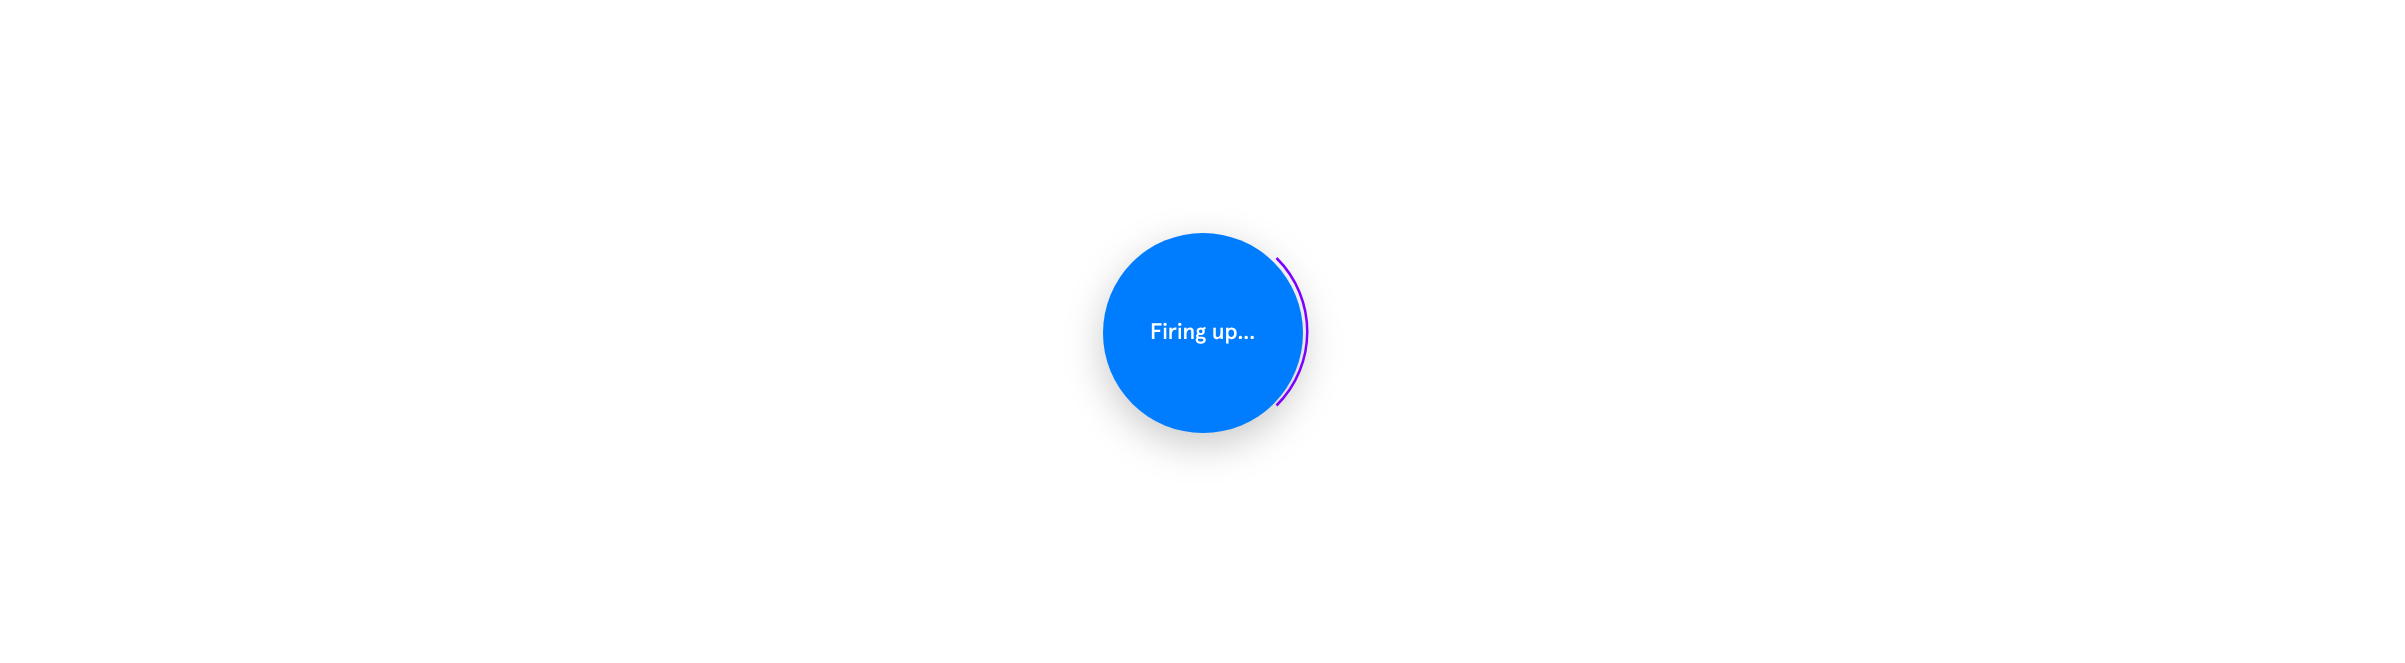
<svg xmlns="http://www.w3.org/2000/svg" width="2405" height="663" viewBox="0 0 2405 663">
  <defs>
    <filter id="blur1" x="-50%" y="-200%" width="200%" height="500%"><feGaussianBlur stdDeviation="19"/></filter>
  </defs>
  <rect width="100%" height="100%" fill="#ffffff"/>
  <rect x="1103" y="245" width="200" height="200" rx="100" fill="#000000" fill-opacity="0.21" filter="url(#blur1)"/>
  <circle cx="1203" cy="333" r="100" fill="#007cff"/>
  <text x="1150" y="339" font-family="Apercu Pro" font-size="22.5" font-weight="500" fill="#ffffff">Firing up...</text>
  <path d="M1276.5 258C1317.5 298.5 1317.5 365 1276.5 405.5" fill="none" stroke="#7d00fe" stroke-width="2.5"/>
</svg>
